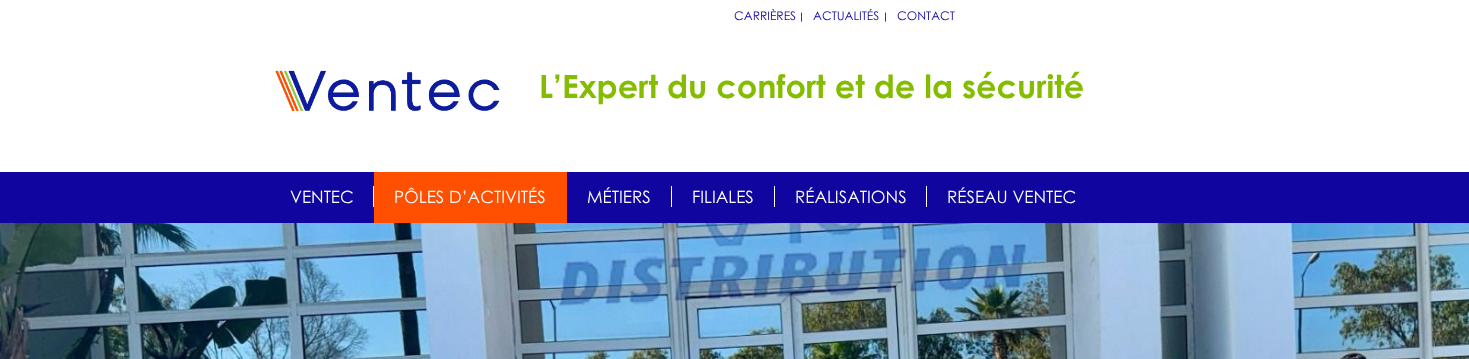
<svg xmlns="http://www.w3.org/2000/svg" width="1469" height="359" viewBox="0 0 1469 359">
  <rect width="100%" height="100%" fill="#ffffff"/>
  <image x="801" y="12" width="1" height="10" href="img1.png"/>
  <text x="734" y="20" font-family="Century Gothic" font-size="12" fill="#10069f">CARRIÈRES</text>
  <image x="885" y="12" width="1" height="10" href="img1.png"/>
  <text x="813" y="20" font-family="Century Gothic" font-size="12" fill="#10069f">ACTUALITÉS</text>
  <text x="897" y="20" font-family="Century Gothic" font-size="12" fill="#10069f">CONTACT</text>
  <image x="275" y="70" width="225" height="41" href="img2.png"/>
  <text x="539" y="98" font-family="Century Gothic" font-size="32" font-weight="bold" fill="#84bd00">L’Expert du confort et de la sécurité</text>
  <rect x="0" y="172" width="1469" height="51" fill="#10069f"/>
  <rect x="373" y="186" width="1" height="21" fill="#ffffff"/>
  <text x="290" y="203" font-family="Century Gothic" font-size="17" fill="#ffffff">VENTEC</text>
  <rect x="374" y="172" width="193" height="51" fill="#fe5000"/>
  <text x="394" y="203" font-family="Century Gothic" font-size="17" fill="#ffffff">PÔLES D’ACTIVITÉS</text>
  <rect x="671" y="186" width="1" height="21" fill="#ffffff"/>
  <text x="587" y="203" font-family="Century Gothic" font-size="17" fill="#ffffff">MÉTIERS</text>
  <rect x="774" y="186" width="1" height="21" fill="#ffffff"/>
  <text x="692" y="203" font-family="Century Gothic" font-size="17" fill="#ffffff">FILIALES</text>
  <rect x="926" y="186" width="1" height="21" fill="#ffffff"/>
  <text x="795" y="203" font-family="Century Gothic" font-size="17" fill="#ffffff">RÉALISATIONS</text>
  <text x="947" y="203" font-family="Century Gothic" font-size="17" fill="#ffffff">RÉSEAU VENTEC</text>
  <image x="0" y="223" width="1469" height="136" href="img3.png"/>
</svg>
